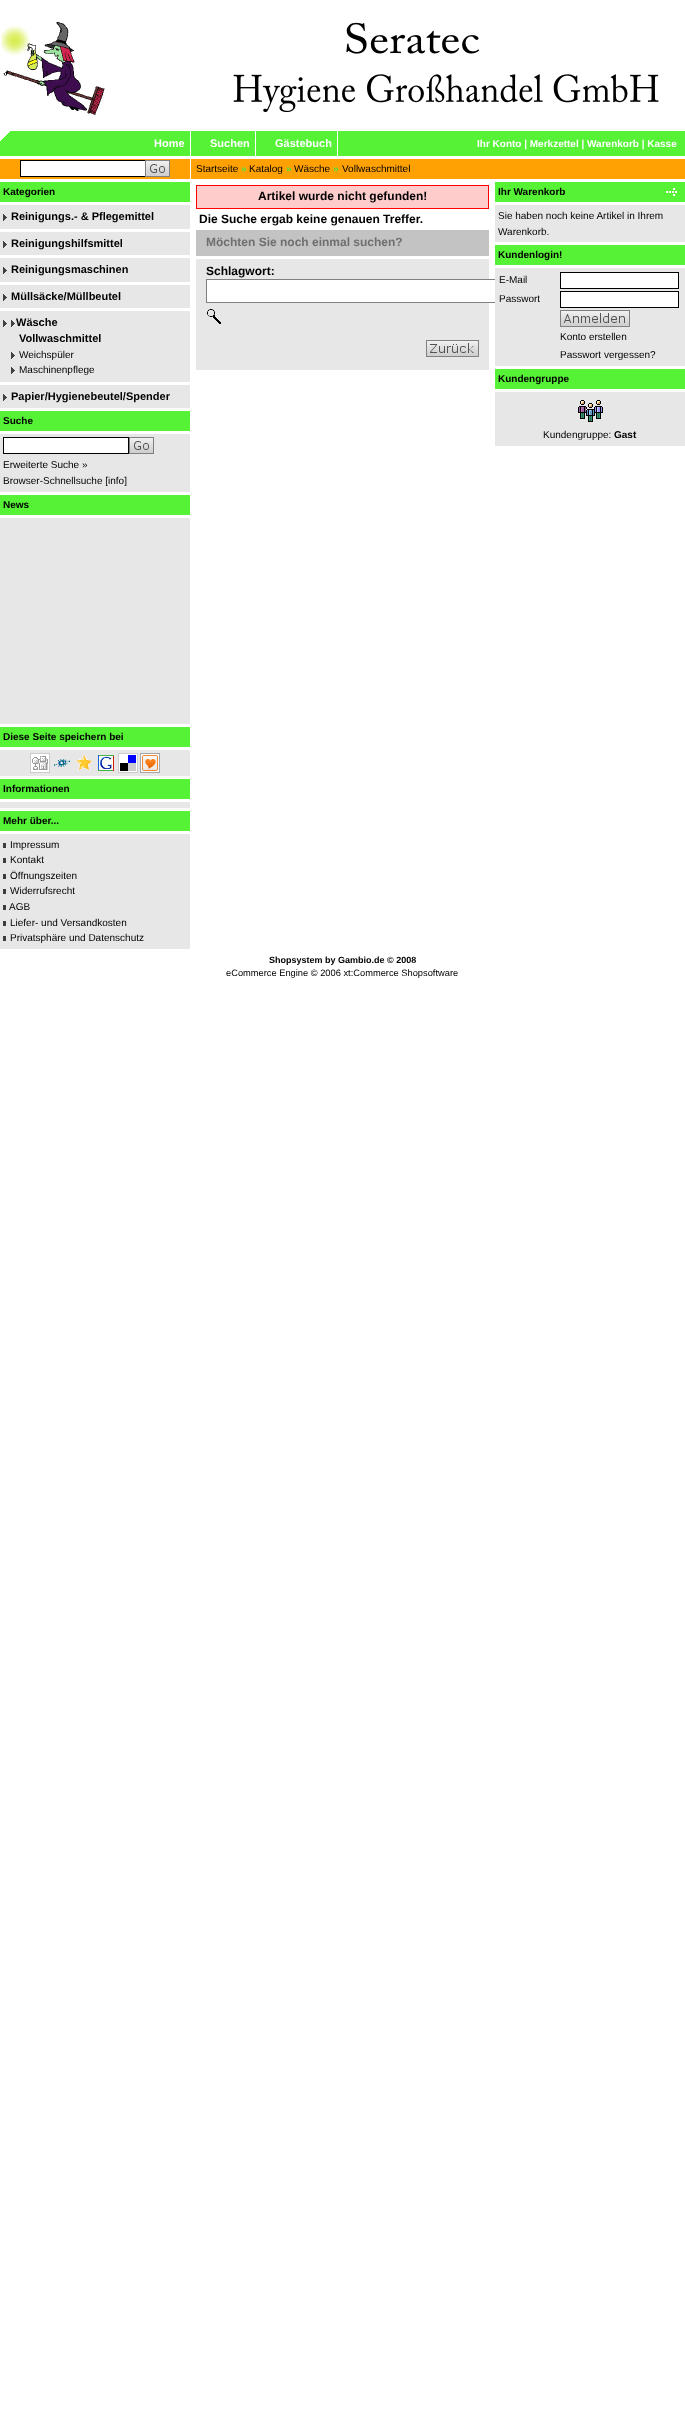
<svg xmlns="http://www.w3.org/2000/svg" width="685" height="2412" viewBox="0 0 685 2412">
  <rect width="100%" height="100%" fill="#ffffff"/>
  <image x="1" y="22" width="658" height="93" href="img1.png"/>
  <rect x="0" y="131" width="685" height="25" fill="#56f236"/>
  <image x="0" y="131" width="10" height="10" href="img2.png"/>
  <rect x="190" y="131" width="1" height="25" fill="#ffffff"/>
  <text x="154" y="147" font-family="Liberation Sans" font-size="11" font-weight="bold" fill="#ffffff">Home</text>
  <rect x="255" y="131" width="1" height="25" fill="#ffffff"/>
  <text x="210" y="147" font-family="Liberation Sans" font-size="11" font-weight="bold" fill="#ffffff">Suchen</text>
  <rect x="337" y="131" width="1" height="25" fill="#ffffff"/>
  <text x="275" y="147" font-family="Liberation Sans" font-size="11" font-weight="bold" fill="#ffffff">Gästebuch</text>
  <text x="477" y="147" font-family="Liberation Sans" font-size="10" font-weight="bold" fill="#ffffff">Ihr Konto | Merkzettel | Warenkorb | Kasse</text>
  <rect x="0" y="159" width="685" height="20" fill="#ffa103"/>
  <rect x="190" y="159" width="1" height="20" fill="#ffffff"/>
  <rect x="20.5" y="160.5" width="125" height="16" fill="#ffffff" stroke="#000000"/>
  <image x="145" y="160" width="25" height="17" href="img3.png"/>
  <text x="196" y="172" font-family="Liberation Sans" font-size="10" fill="#000000">Startseite</text>
  <text x="241" y="172" font-family="Liberation Sans" font-size="10" fill="#00ff61">»</text>
  <text x="249" y="172" font-family="Liberation Sans" font-size="10" fill="#000000">Katalog</text>
  <text x="286" y="172" font-family="Liberation Sans" font-size="10" fill="#00ff61">»</text>
  <text x="294" y="172" font-family="Liberation Sans" font-size="10" fill="#000000">Wäsche</text>
  <text x="333" y="172" font-family="Liberation Sans" font-size="10" fill="#00ff61">»</text>
  <text x="342" y="172" font-family="Liberation Sans" font-size="10" fill="#000000">Vollwaschmittel</text>
  <rect x="0" y="182" width="190" height="20" fill="#56f236"/>
  <text x="3" y="195" font-family="Liberation Sans" font-size="10" font-weight="bold" fill="#000000">Kategorien</text>
  <rect x="0" y="205" width="190" height="24" fill="#e7e7e7"/>
  <image x="3" y="214" width="4" height="7" href="img4.png"/>
  <text x="11" y="220" font-family="Liberation Sans" font-size="11" font-weight="bold" fill="#000000">Reinigungs.- &amp; Pflegemittel</text>
  <rect x="0" y="232" width="190" height="23" fill="#e7e7e7"/>
  <image x="3" y="241" width="4" height="7" href="img4.png"/>
  <text x="11" y="247" font-family="Liberation Sans" font-size="11" font-weight="bold" fill="#000000">Reinigungshilfsmittel</text>
  <rect x="0" y="258" width="190" height="24" fill="#e7e7e7"/>
  <image x="3" y="267" width="4" height="7" href="img4.png"/>
  <text x="11" y="273" font-family="Liberation Sans" font-size="11" font-weight="bold" fill="#000000">Reinigungsmaschinen</text>
  <rect x="0" y="285" width="190" height="23" fill="#e7e7e7"/>
  <image x="3" y="294" width="4" height="7" href="img4.png"/>
  <text x="11" y="300" font-family="Liberation Sans" font-size="11" font-weight="bold" fill="#000000">Müllsäcke/Müllbeutel</text>
  <rect x="0" y="311" width="190" height="71" fill="#e7e7e7"/>
  <image x="3" y="320" width="4" height="7" href="img4.png"/>
  <image x="11" y="320" width="4" height="7" href="img4.png"/>
  <text x="16" y="326" font-family="Liberation Sans" font-size="11" font-weight="bold" fill="#000000">Wäsche</text>
  <text x="19" y="342" font-family="Liberation Sans" font-size="11" font-weight="bold" fill="#000000">Vollwaschmittel</text>
  <image x="11" y="352" width="4" height="7" href="img4.png"/>
  <text x="19" y="358" font-family="Liberation Sans" font-size="10" fill="#000000">Weichspüler</text>
  <image x="11" y="367" width="4" height="7" href="img4.png"/>
  <text x="19" y="373" font-family="Liberation Sans" font-size="10" fill="#000000">Maschinenpflege</text>
  <rect x="0" y="385" width="190" height="23" fill="#e7e7e7"/>
  <image x="3" y="394" width="4" height="7" href="img4.png"/>
  <text x="11" y="400" font-family="Liberation Sans" font-size="11" font-weight="bold" fill="#000000">Papier/Hygienebeutel/Spender</text>
  <rect x="0" y="411" width="190" height="20" fill="#56f236"/>
  <text x="3" y="424" font-family="Liberation Sans" font-size="10" font-weight="bold" fill="#000000">Suche</text>
  <rect x="0" y="434" width="190" height="58" fill="#e7e7e7"/>
  <rect x="3.5" y="437.5" width="125" height="16" fill="#ffffff" stroke="#000000"/>
  <image x="129" y="437" width="25" height="17" href="img3.png"/>
  <text x="3" y="468" font-family="Liberation Sans" font-size="10" fill="#000000">Erweiterte Suche »</text>
  <text x="3" y="484" font-family="Liberation Sans" font-size="10" fill="#000000">Browser-Schnellsuche [info]</text>
  <rect x="0" y="495" width="190" height="20" fill="#56f236"/>
  <text x="3" y="508" font-family="Liberation Sans" font-size="10" font-weight="bold" fill="#000000">News</text>
  <rect x="0" y="518" width="190" height="206" fill="#e7e7e7"/>
  <rect x="0" y="727" width="190" height="20" fill="#56f236"/>
  <text x="3" y="740" font-family="Liberation Sans" font-size="10" font-weight="bold" fill="#000000">Diese Seite speichern bei</text>
  <rect x="0" y="750" width="190" height="26" fill="#e7e7e7"/>
  <image x="30" y="753" width="20" height="20" href="img5.png"/>
  <image x="54" y="759" width="16" height="8" href="img6.png"/>
  <image x="76" y="755" width="16" height="15" href="img7.png"/>
  <image x="98" y="755" width="16" height="16" href="img8.png"/>
  <image x="118" y="753" width="20" height="20" href="img9.png"/>
  <image x="140" y="753" width="20" height="20" href="img10.png"/>
  <rect x="0" y="779" width="190" height="20" fill="#56f236"/>
  <text x="3" y="792" font-family="Liberation Sans" font-size="10" font-weight="bold" fill="#000000">Informationen</text>
  <rect x="0" y="802" width="190" height="6" fill="#e7e7e7"/>
  <rect x="0" y="811" width="190" height="20" fill="#56f236"/>
  <text x="3" y="824" font-family="Liberation Sans" font-size="10" font-weight="bold" fill="#000000">Mehr über...</text>
  <rect x="0" y="834" width="190" height="115" fill="#e7e7e7"/>
  <rect x="3" y="843" width="3" height="5" fill="#3e3c3d"/>
  <text x="10" y="848" font-family="Liberation Sans" font-size="10" fill="#000000">Impressum</text>
  <rect x="3" y="858" width="3" height="5" fill="#3e3c3d"/>
  <text x="10" y="863" font-family="Liberation Sans" font-size="10" fill="#000000">Kontakt</text>
  <rect x="3" y="874" width="3" height="5" fill="#3e3c3d"/>
  <text x="10" y="879" font-family="Liberation Sans" font-size="10" fill="#000000">Öffnungszeiten</text>
  <rect x="3" y="889" width="3" height="5" fill="#3e3c3d"/>
  <text x="10" y="894" font-family="Liberation Sans" font-size="10" fill="#000000">Widerrufsrecht</text>
  <rect x="3" y="905" width="3" height="5" fill="#3e3c3d"/>
  <text x="9" y="910" font-family="Liberation Sans" font-size="10" fill="#000000">AGB</text>
  <rect x="3" y="921" width="3" height="5" fill="#3e3c3d"/>
  <text x="10" y="926" font-family="Liberation Sans" font-size="10" fill="#000000">Liefer- und Versandkosten</text>
  <rect x="3" y="936" width="3" height="5" fill="#3e3c3d"/>
  <text x="10" y="941" font-family="Liberation Sans" font-size="10" fill="#000000">Privatsphäre und Datenschutz</text>
  <rect x="196.5" y="185.5" width="292" height="23" fill="#ffcccc" stroke="#ff0000"/>
  <text x="258" y="200" font-family="Liberation Sans" font-size="12" font-weight="bold" fill="#000000">Artikel wurde nicht gefunden!</text>
  <text x="199" y="223" font-family="Liberation Sans" font-size="12" font-weight="bold" fill="#000000">Die Suche ergab keine genauen Treffer.</text>
  <rect x="196" y="230" width="293" height="26" fill="#c3c3c3"/>
  <text x="206" y="246" font-family="Liberation Sans" font-size="12" font-weight="bold" fill="#706f6f">Möchten Sie noch einmal suchen?</text>
  <rect x="196" y="259" width="293" height="111" fill="#e7e7e7"/>
  <text x="206" y="275" font-family="Liberation Sans" font-size="12" font-weight="bold" fill="#000000">Schlagwort:</text>
  <rect x="207" y="280" width="282" height="22" fill="#ffffff"/>
  <rect x="206.5" y="279.5" width="304" height="23" fill="none" stroke="#808080"/>
  <image x="207" y="309" width="14" height="15" href="img11.png"/>
  <image x="426" y="340" width="53" height="17" href="img12.png"/>
  <rect x="495" y="279" width="16" height="24" fill="#ffffff"/>
  <rect x="495" y="182" width="190" height="20" fill="#56f236"/>
  <text x="498" y="195" font-family="Liberation Sans" font-size="10" font-weight="bold" fill="#000000">Ihr Warenkorb</text>
  <image x="666" y="188" width="11" height="8" href="img13.png"/>
  <rect x="495" y="205" width="190" height="37" fill="#e7e7e7"/>
  <text x="498" y="219" font-family="Liberation Sans" font-size="10" fill="#000000">Sie haben noch keine Artikel in Ihrem</text>
  <text x="498" y="235" font-family="Liberation Sans" font-size="10" fill="#000000">Warenkorb.</text>
  <rect x="495" y="245" width="190" height="20" fill="#56f236"/>
  <text x="498" y="258" font-family="Liberation Sans" font-size="10" font-weight="bold" fill="#000000">Kundenlogin!</text>
  <rect x="495" y="268" width="190" height="98" fill="#e7e7e7"/>
  <text x="499" y="283" font-family="Liberation Sans" font-size="10" fill="#000000">E-Mail</text>
  <rect x="560.5" y="272.5" width="118" height="16" fill="#ffffff" stroke="#000000"/>
  <text x="499" y="302" font-family="Liberation Sans" font-size="10" fill="#000000">Passwort</text>
  <rect x="560.5" y="291.5" width="118" height="16" fill="#ffffff" stroke="#000000"/>
  <image x="560" y="310" width="70" height="17" href="img14.png"/>
  <text x="560" y="340" font-family="Liberation Sans" font-size="10" fill="#000000">Konto erstellen</text>
  <text x="560" y="358" font-family="Liberation Sans" font-size="10" fill="#000000">Passwort vergessen?</text>
  <rect x="495" y="369" width="190" height="20" fill="#56f236"/>
  <text x="498" y="382" font-family="Liberation Sans" font-size="10" font-weight="bold" fill="#000000">Kundengruppe</text>
  <rect x="495" y="392" width="190" height="54" fill="#e7e7e7"/>
  <image x="578" y="400" width="25" height="22" href="img15.png"/>
  <text x="543" y="438" font-family="Liberation Sans" font-size="10" fill="#000000">Kundengruppe:</text>
  <text x="614" y="438" font-family="Liberation Sans" font-size="10" font-weight="bold" fill="#000000">Gast</text>
  <text x="269" y="963" font-family="Liberation Sans" font-size="9" font-weight="bold" fill="#000000">Shopsystem by Gambio.de © 2008</text>
  <text x="226" y="976" font-family="Liberation Sans" font-size="9.3" fill="#000000">eCommerce Engine © 2006 xt:Commerce Shopsoftware</text>
</svg>
